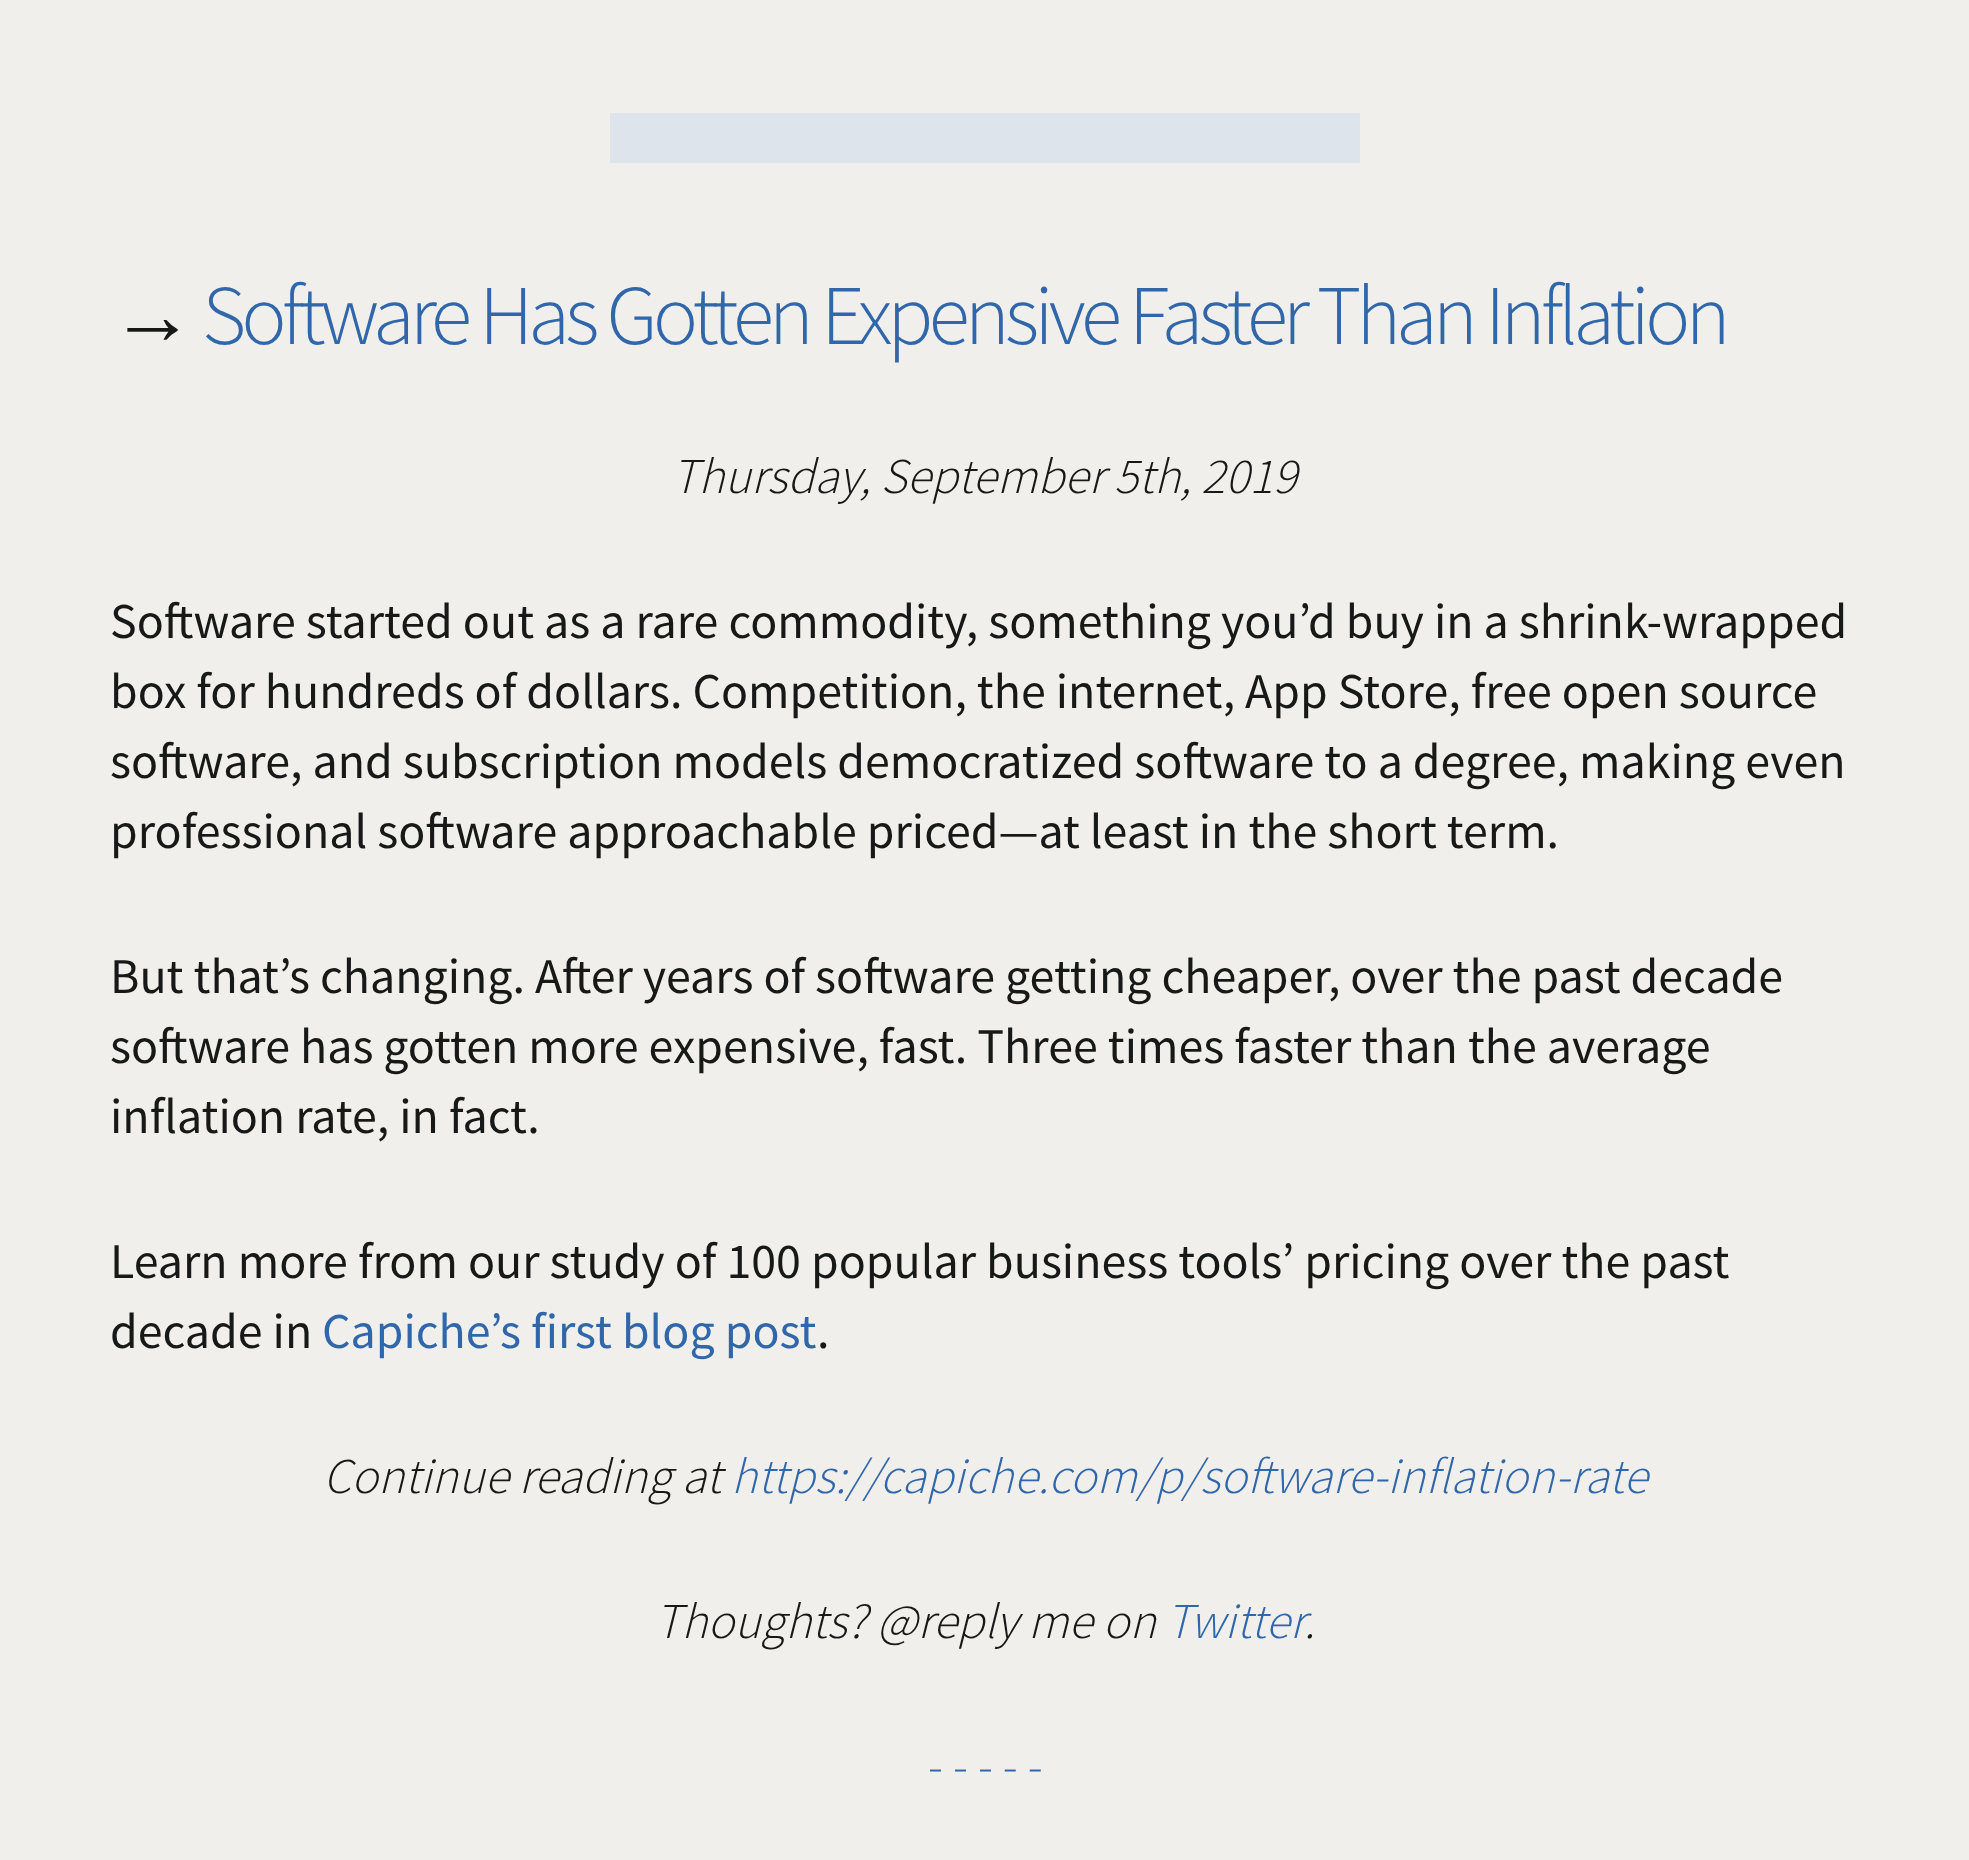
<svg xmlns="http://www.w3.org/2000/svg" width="1969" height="1860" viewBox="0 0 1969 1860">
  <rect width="100%" height="100%" fill="#f0efec"/>
  <rect x="610" y="113" width="750" height="50" fill="#dde4ec"/>
  <text x="110" y="344" font-family="Liberation Sans" font-size="85" letter-spacing="-5" fill="#171818">→</text>
  <text x="202" y="344" font-family="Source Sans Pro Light" font-size="85" font-weight="300" letter-spacing="-5" fill="#3067aa">Software Has Gotten Expensive Faster Than Inflation</text>
  <text x="672" y="493" font-family="Source Sans Pro Light" font-size="50" font-weight="300" font-style="italic" fill="#171818">Thursday, September 5th, 2019</text>
  <text x="110" y="638" font-family="Source Sans Pro" font-size="50" fill="#171818">Software started out as a rare commodity, something you’d buy in a shrink-wrapped</text>
  <text x="110" y="708" font-family="Source Sans Pro" font-size="50" fill="#171818">box for hundreds of dollars. Competition, the internet, App Store, free open source</text>
  <text x="110" y="778" font-family="Source Sans Pro" font-size="50" fill="#171818">software, and subscription models democratized software to a degree, making even</text>
  <text x="110" y="848" font-family="Source Sans Pro" font-size="50" fill="#171818">professional software approachable priced—at least in the short term.</text>
  <text x="110" y="993" font-family="Source Sans Pro" font-size="50" fill="#171818">But that’s changing. After years of software getting cheaper, over the past decade</text>
  <text x="110" y="1063" font-family="Source Sans Pro" font-size="50" fill="#171818">software has gotten more expensive, fast. Three times faster than the average</text>
  <text x="110" y="1133" font-family="Source Sans Pro" font-size="50" fill="#171818">inflation rate, in fact.</text>
  <text x="110" y="1278" font-family="Source Sans Pro" font-size="50" fill="#171818">Learn more from our study of 100 popular business tools’ pricing over the past</text>
  <text x="110" y="1348" font-family="Source Sans Pro" font-size="50" fill="#171818">decade in</text>
  <text x="322" y="1348" font-family="Source Sans Pro" font-size="50" fill="#3067aa">Capiche’s first blog post</text>
  <text x="817" y="1348" font-family="Source Sans Pro" font-size="50" fill="#171818">.</text>
  <text x="323" y="1493" font-family="Source Sans Pro Light" font-size="50" font-weight="300" font-style="italic" fill="#171818">Continue reading at</text>
  <text x="731" y="1493" font-family="Source Sans Pro Light" font-size="50" font-weight="300" font-style="italic" fill="#3067aa">https://capiche.com/p/software-inflation-rate</text>
  <text x="655" y="1638" font-family="Source Sans Pro Light" font-size="50" font-weight="300" font-style="italic" fill="#171818">Thoughts? @reply me on</text>
  <text x="1166" y="1638" font-family="Source Sans Pro Light" font-size="50" font-weight="300" font-style="italic" fill="#3067aa">Twitter</text>
  <text x="1304" y="1638" font-family="Source Sans Pro Light" font-size="50" font-weight="300" font-style="italic" fill="#171818">.</text>
  <text x="928" y="1783" font-family="Source Sans Pro Light" font-size="50" font-weight="300" fill="#3067aa">- - - - -</text>
</svg>
